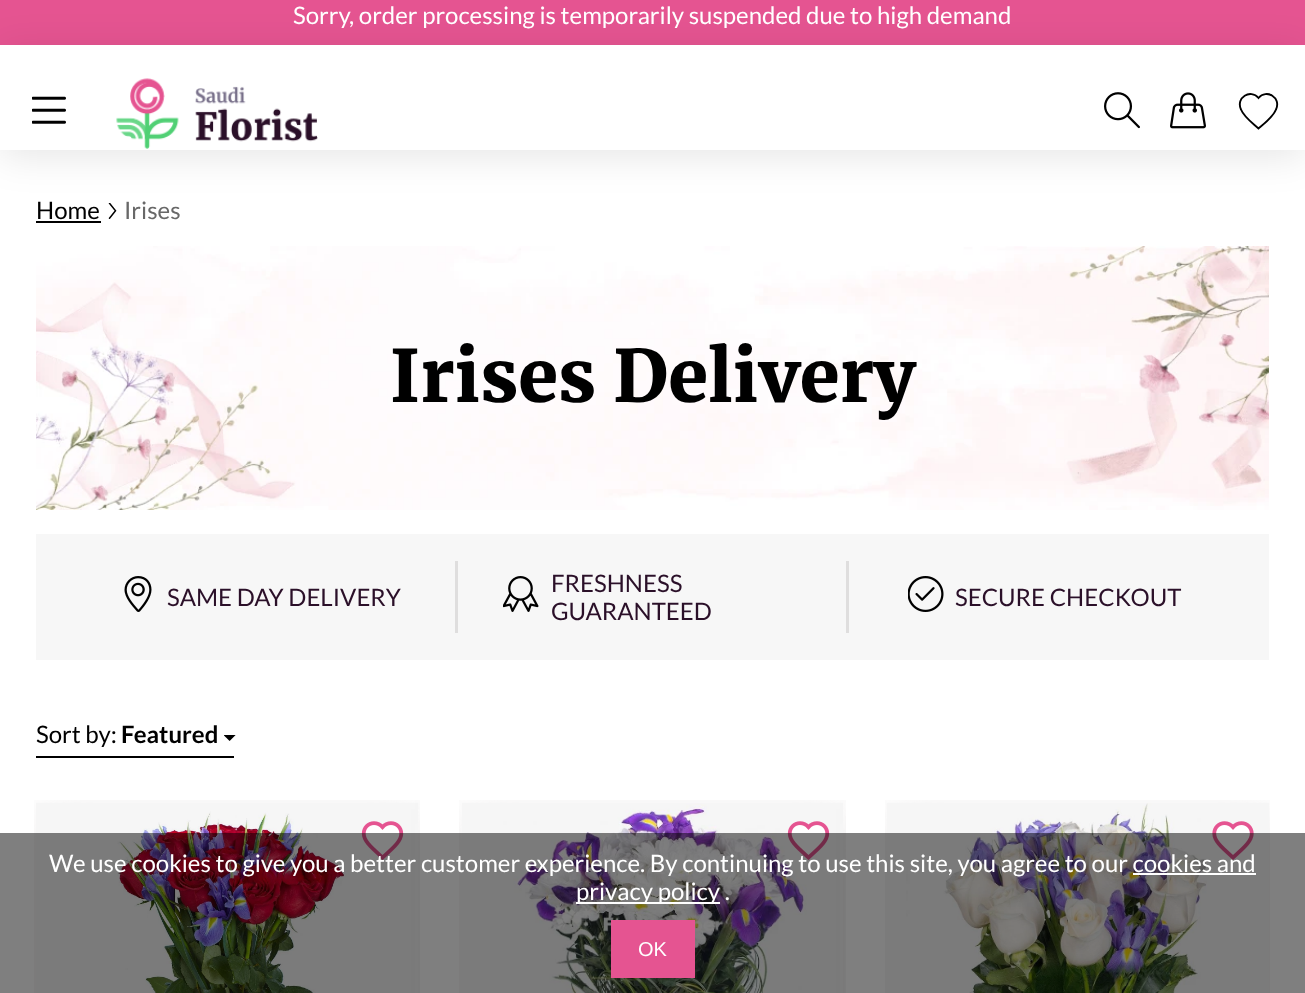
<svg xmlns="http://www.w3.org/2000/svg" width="1305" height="993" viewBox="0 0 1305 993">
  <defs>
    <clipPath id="clip1"><path d="M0 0H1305V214H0ZM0 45H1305V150H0Z" clip-rule="evenodd"/></clipPath>
    <filter id="blur1" x="-50%" y="-200%" width="200%" height="500%"><feGaussianBlur stdDeviation="19"/></filter>
  </defs>
  <rect width="100%" height="100%" fill="#ffffff"/>
  <rect x="0" y="0" width="1305" height="45" fill="#e55491"/>
  <image x="108" y="203" width="9" height="16" href="img5.png"/>
  <g clip-path="url(#clip1)">
    <rect x="0" y="51" width="1305" height="105" fill="#000000" fill-opacity="0.1" filter="url(#blur1)"/>
  </g>
  <image x="32" y="96" width="34" height="28" href="img1.png"/>
  <image x="116" y="78" width="202" height="71" href="img2.png"/>
  <image x="1104" y="92" width="36" height="37" href="img3.png"/>
  <image x="1170" y="92" width="36" height="37" href="img4.png"/>
  <path d="M1258.5 128.5C1252.5 123 1244 117 1241 109.5C1235.5 97.5 1250.5 88.5 1258.5 98C1266.5 88.5 1281.5 97.5 1276 109.5C1273 117 1264.5 123.5 1258.5 128.5Z" fill="none" stroke="#000000" stroke-width="1.9"/>
  <text x="293" y="24" font-family="Lato" font-size="24" fill="#ffffff">Sorry, order processing is temporarily suspended due to high demand</text>
  <text x="36" y="219" font-family="Lato" font-size="24" fill="#000000">Home</text>
  <rect x="36" y="221" width="65" height="2" fill="#000000"/>
  <text x="124" y="219" font-family="Lato" font-size="24" fill="#686868">Irises</text>
  <image x="36" y="246" width="1233" height="264" href="img6.png"/>
  <text x="390" y="402" font-family="Merriweather" font-size="72" font-weight="900" fill="#000000">Irises Delivery</text>
  <rect x="36" y="534" width="1233" height="126" fill="#f7f7f7"/>
  <rect x="455" y="561" width="3" height="72" fill="#dfdede"/>
  <image x="124" y="576" width="28" height="36" href="img7.png"/>
  <text x="167" y="606" font-family="Lato" font-size="24" fill="#2b1029">SAME DAY DELIVERY</text>
  <rect x="846" y="561" width="3" height="72" fill="#dfdede"/>
  <image x="503" y="576" width="36" height="36" href="img8.png"/>
  <text x="551" y="592" font-family="Lato" font-size="24" fill="#2b1029">FRESHNESS</text>
  <text x="551" y="620" font-family="Lato" font-size="24" fill="#2b1029">GUARANTEED</text>
  <image x="908" y="576" width="36" height="36" href="img9.png"/>
  <text x="955" y="606" font-family="Lato" font-size="24" fill="#2b1029">SECURE CHECKOUT</text>
  <rect x="36" y="756" width="198" height="2" fill="#000000"/>
  <text x="36" y="743" font-family="Lato" font-size="24" fill="#000000">Sort by:</text>
  <text x="121" y="743" font-family="Lato" font-size="24" font-weight="bold" fill="#000000">Featured</text>
  <image x="224" y="735" width="12" height="6" href="img10.png"/>
  <image x="34" y="800" width="386" height="193" href="img11.png"/>
  <image x="361" y="821" width="43" height="39" href="img12.png"/>
  <image x="459" y="800" width="387" height="193" href="img13.png"/>
  <image x="787" y="821" width="43" height="39" href="img14.png"/>
  <image x="885" y="800" width="385" height="193" href="img15.png"/>
  <image x="1212" y="821" width="42" height="39" href="img16.png"/>
  <rect x="0" y="833" width="1305" height="160" fill="#000000" fill-opacity="0.5"/>
  <text x="49" y="872" font-family="Lato" font-size="24" fill="#ffffff">We use cookies to give you a better customer experience. By continuing to use this site, you agree to our cookies and</text>
  <rect x="576" y="902" width="144" height="2" fill="#ffffff"/>
  <text x="576" y="900" font-family="Lato" font-size="24" fill="#ffffff">privacy policy .</text>
  <rect x="1133" y="873" width="123" height="2" fill="#ffffff"/>
  <rect x="611" y="920" width="84" height="58" fill="#e55491"/>
  <text x="638" y="956" font-family="Liberation Sans" font-size="20" fill="#ffffff">OK</text>
</svg>
